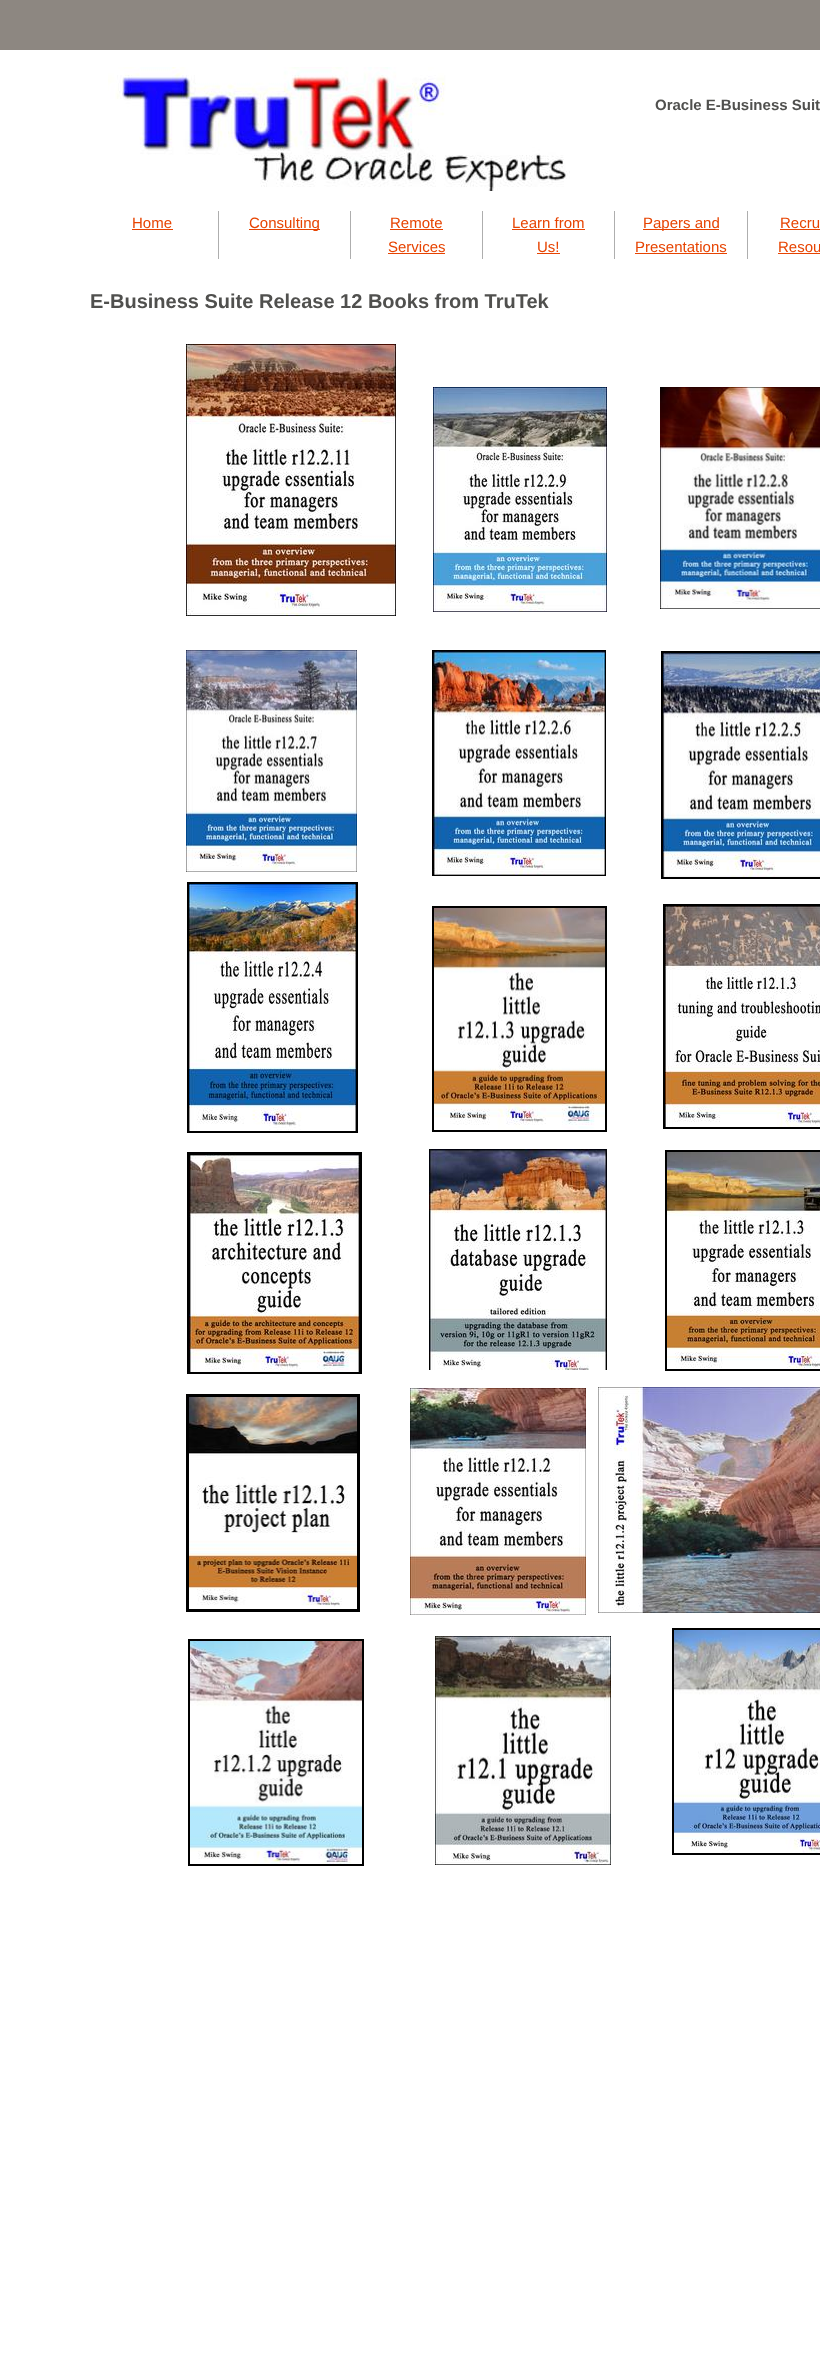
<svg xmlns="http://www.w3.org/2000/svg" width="820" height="2379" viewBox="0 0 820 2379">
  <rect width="100%" height="100%" fill="#8d8781"/>
  <rect x="0" y="50" width="820" height="2329" fill="#ffffff"/>
  <image x="108" y="67" width="462" height="124" href="img1.png"/>
  <text x="655" y="110" font-family="Liberation Sans" font-size="15" font-weight="bold" fill="#50504e">Oracle E-Business Suit</text>
  <rect x="218" y="211" width="1" height="48" fill="#aeaeae"/>
  <text x="132" y="228" font-family="Liberation Sans" font-size="15" fill="#e74402">Home</text>
  <rect x="132" y="229" width="41" height="1" fill="#e74402"/>
  <rect x="350" y="211" width="1" height="48" fill="#aeaeae"/>
  <rect x="249" y="229" width="71" height="1" fill="#e74402"/>
  <text x="249" y="228" font-family="Liberation Sans" font-size="15" fill="#e74402">Consulting</text>
  <rect x="482" y="211" width="1" height="48" fill="#aeaeae"/>
  <text x="390" y="228" font-family="Liberation Sans" font-size="15" fill="#e74402">Remote</text>
  <rect x="390" y="229" width="53" height="1" fill="#e74402"/>
  <text x="388" y="252" font-family="Liberation Sans" font-size="15" fill="#e74402">Services</text>
  <rect x="388" y="253" width="57" height="1" fill="#e74402"/>
  <rect x="614" y="211" width="1" height="48" fill="#aeaeae"/>
  <text x="512" y="228" font-family="Liberation Sans" font-size="15" fill="#e74402">Learn from</text>
  <rect x="512" y="229" width="73" height="1" fill="#e74402"/>
  <text x="537" y="252" font-family="Liberation Sans" font-size="15" fill="#e74402">Us!</text>
  <rect x="537" y="253" width="23" height="1" fill="#e74402"/>
  <rect x="747" y="211" width="1" height="48" fill="#aeaeae"/>
  <rect x="643" y="229" width="76" height="1" fill="#e74402"/>
  <text x="643" y="228" font-family="Liberation Sans" font-size="15" fill="#e74402">Papers and</text>
  <text x="635" y="252" font-family="Liberation Sans" font-size="15" fill="#e74402">Presentations</text>
  <rect x="635" y="253" width="92" height="1" fill="#e74402"/>
  <text x="780" y="228" font-family="Liberation Sans" font-size="15" fill="#e74402">Recru</text>
  <rect x="780" y="229" width="40" height="1" fill="#e74402"/>
  <text x="778" y="252" font-family="Liberation Sans" font-size="15" fill="#e74402">Resou</text>
  <rect x="778" y="253" width="42" height="1" fill="#e74402"/>
  <text x="90" y="308" font-family="Liberation Sans" font-size="20" font-weight="bold" fill="#50504e">E-Business Suite Release 12 Books from TruTek</text>
  <image x="186" y="344" width="210" height="272" href="img2.png"/>
  <image x="433" y="387" width="174" height="225" href="img3.png"/>
  <image x="660" y="387" width="160" height="222" href="img4.png"/>
  <image x="186" y="650" width="171" height="222" href="img5.png"/>
  <rect x="432.5" y="650.5" width="173" height="225" fill="none" stroke="#000000"/>
  <image x="433" y="651" width="172" height="224" href="img6.png"/>
  <rect x="662" y="652" width="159" height="226" fill="none" stroke="#000000" stroke-width="2"/>
  <image x="663" y="653" width="157" height="224" href="img7.png"/>
  <rect x="188" y="883" width="169" height="249" fill="none" stroke="#000000" stroke-width="2"/>
  <image x="189" y="884" width="167" height="247" href="img8.png"/>
  <rect x="432" y="906" width="175" height="226" fill="#000000"/>
  <image x="434" y="908" width="171" height="222" href="img9.png"/>
  <rect x="664" y="905" width="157" height="223" fill="none" stroke="#000000" stroke-width="2"/>
  <image x="665" y="906" width="155" height="221" href="img10.png"/>
  <rect x="188" y="1153" width="173" height="220" fill="none" stroke="#000000" stroke-width="2"/>
  <image x="189" y="1154" width="171" height="218" href="img11.png"/>
  <image x="429" y="1149" width="178" height="221" href="img12.png"/>
  <rect x="666" y="1151" width="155" height="219" fill="none" stroke="#000000" stroke-width="2"/>
  <image x="667" y="1152" width="153" height="217" href="img13.png"/>
  <rect x="187.5" y="1395.5" width="171" height="215" fill="none" stroke="#000000" stroke-width="3"/>
  <image x="189" y="1397" width="168" height="210" href="img14.png"/>
  <image x="410" y="1388" width="176" height="227" href="img15.png"/>
  <image x="598" y="1387" width="222" height="226" href="img16.png"/>
  <rect x="189" y="1640" width="174" height="225" fill="none" stroke="#000000" stroke-width="2"/>
  <image x="190" y="1641" width="172" height="223" href="img17.png"/>
  <image x="435" y="1636" width="176" height="229" href="img18.png"/>
  <rect x="673" y="1629" width="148" height="225" fill="none" stroke="#000000" stroke-width="2"/>
  <image x="674" y="1630" width="146" height="223" href="img19.png"/>
</svg>
